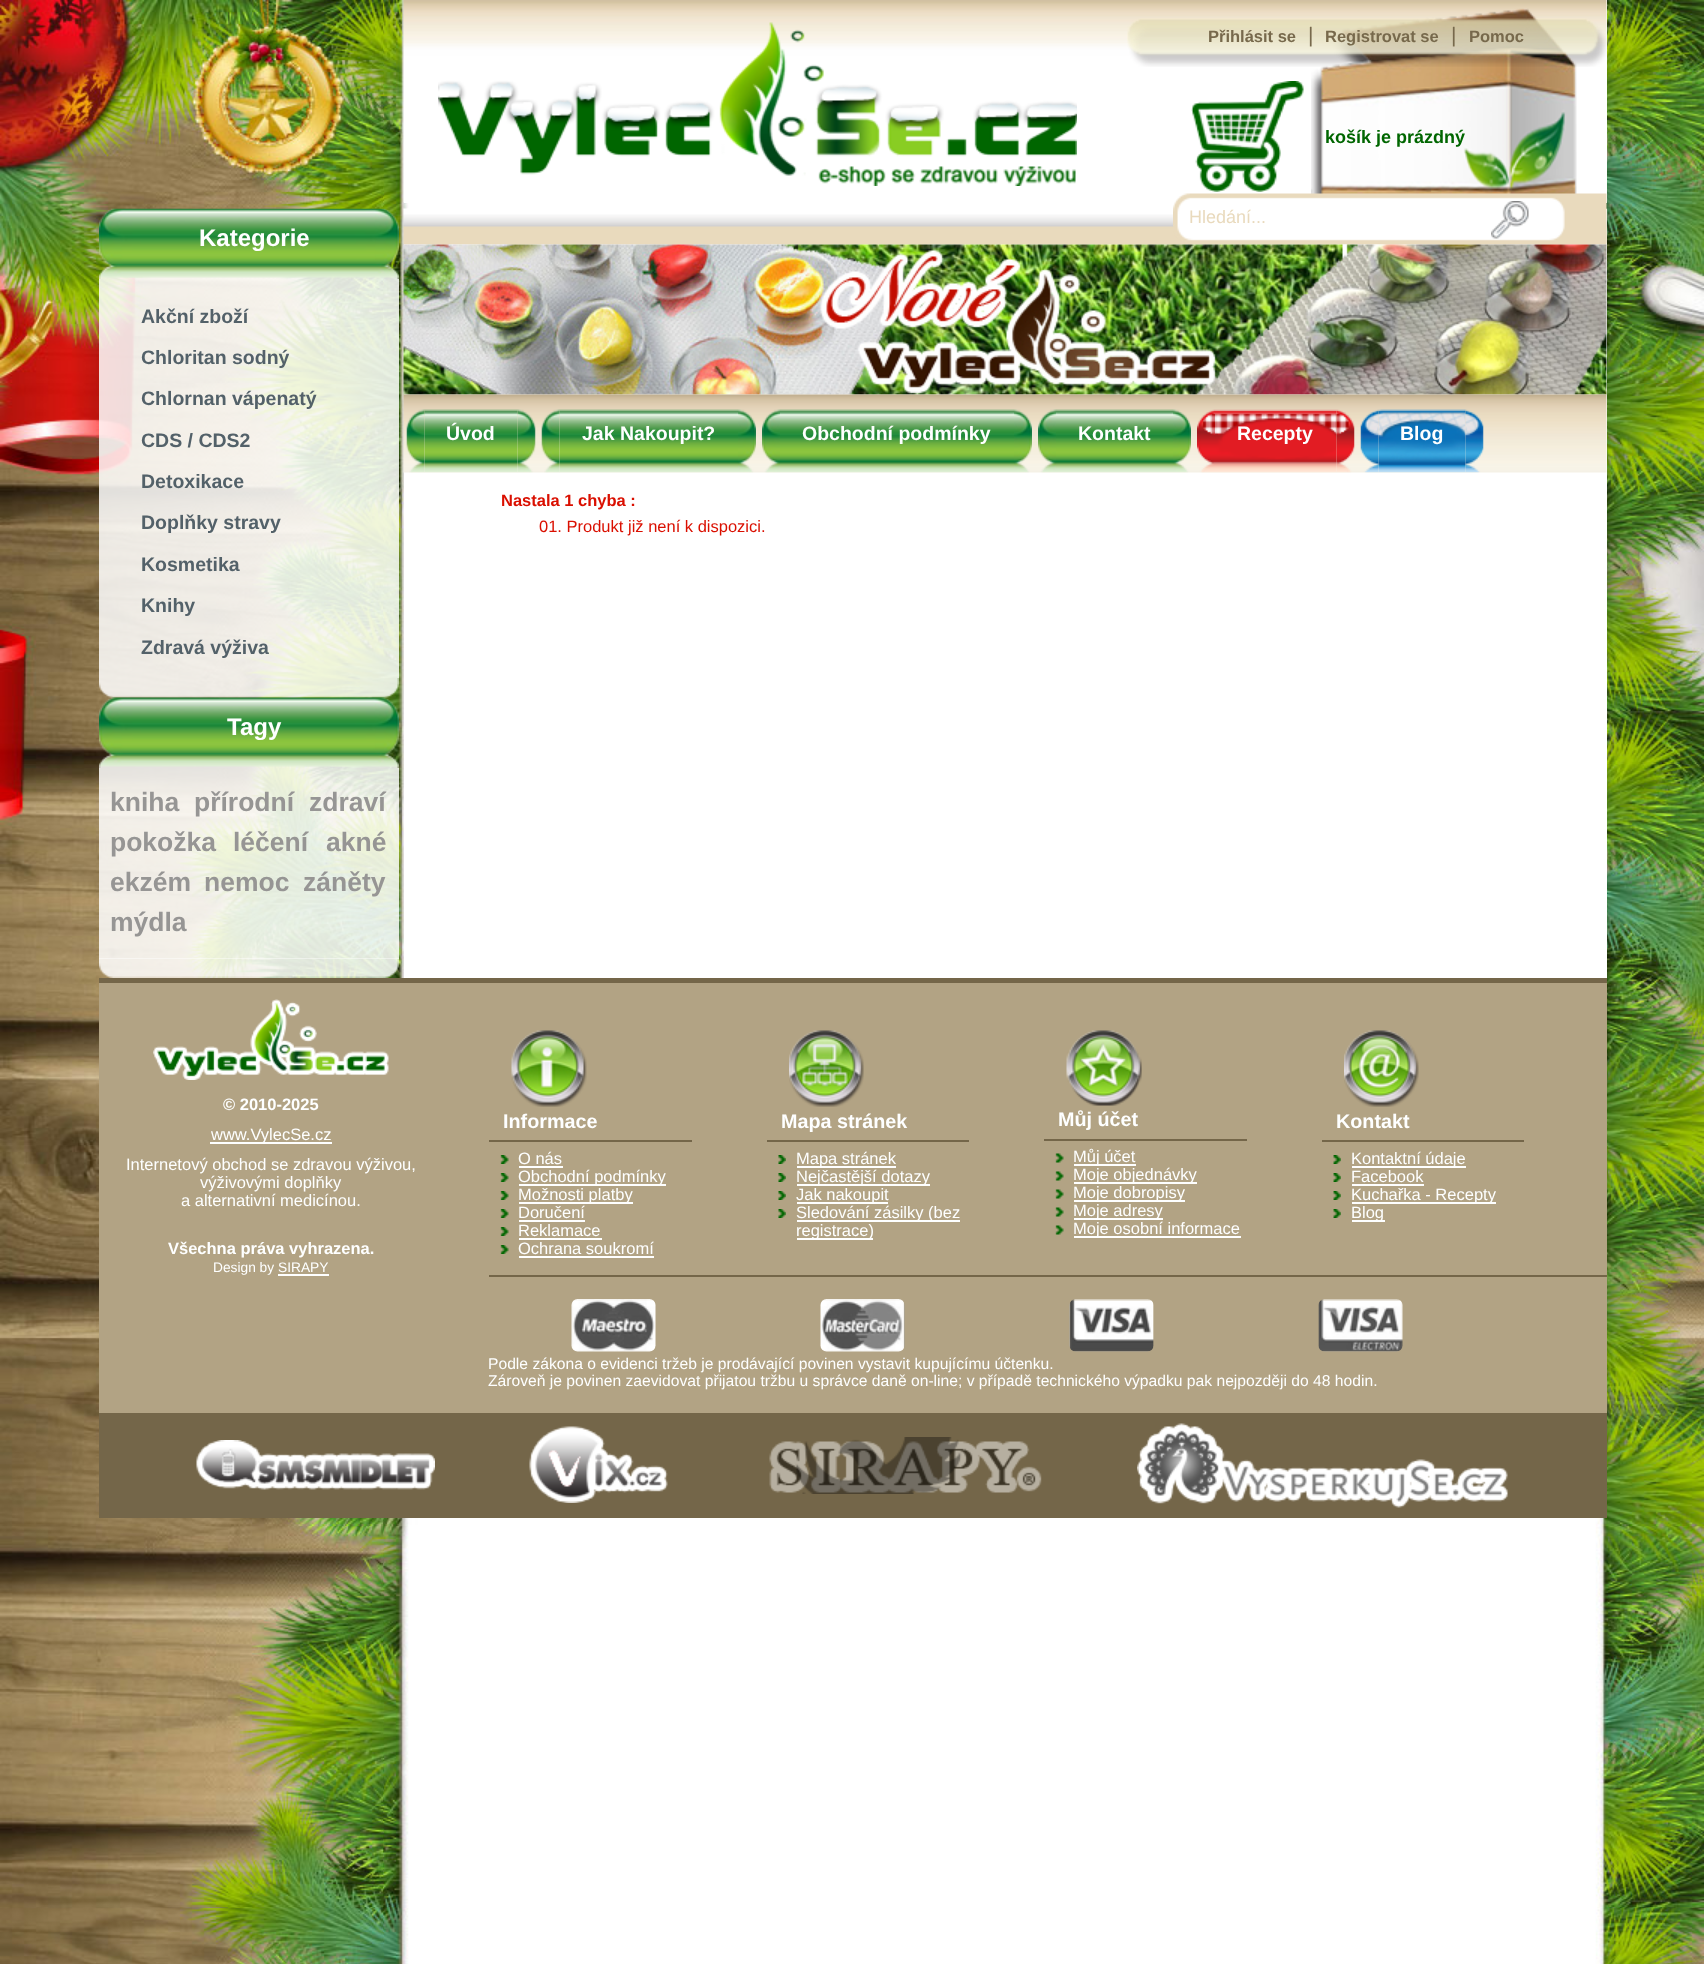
<svg xmlns="http://www.w3.org/2000/svg" width="1704" height="1964" viewBox="0 0 1704 1964">
  <rect width="100%" height="100%" fill="#ffffff"/>
  <image x="0" y="0" width="1704" height="1964" href="img1.png"/>
  <rect x="404" y="0" width="1203" height="203" fill="#ffffff"/>
  <image x="403" y="0" width="1204" height="203" href="img4.png"/>
  <image x="438" y="22" width="639" height="164" href="img2.png"/>
  <image x="1311" y="8" width="266" height="186" href="img3.png"/>
  <image x="1127" y="18" width="480" height="49" href="img5.png"/>
  <text x="1208" y="42" font-family="Liberation Sans" font-size="16.5" font-weight="bold" fill="#77694c">Přihlásit se</text>
  <text x="1308" y="42" font-family="Liberation Sans" font-size="21" fill="#77694c">|</text>
  <text x="1325" y="42" font-family="Liberation Sans" font-size="16.5" font-weight="bold" fill="#77694c">Registrovat se</text>
  <text x="1451" y="42" font-family="Liberation Sans" font-size="21" fill="#77694c">|</text>
  <text x="1469" y="42" font-family="Liberation Sans" font-size="16.5" font-weight="bold" fill="#77694c">Pomoc</text>
  <image x="1191" y="81" width="113" height="111" href="img6.png"/>
  <text x="1325" y="143" font-family="Liberation Sans" font-size="18" font-weight="bold" fill="#006600">košík je prázdný</text>
  <rect x="404" y="209" width="1203" height="769" fill="#ffffff"/>
  <image x="403" y="208" width="1204" height="37" href="img13.png"/>
  <image x="1173" y="193" width="434" height="50" href="img7.png"/>
  <text x="1189" y="223" font-family="Liberation Sans" font-size="18" fill="#e9dabd">Hledání...</text>
  <image x="1491" y="201" width="38" height="38" href="img8.png"/>
  <image x="99" y="208" width="300" height="71" href="img9.png"/>
  <text x="199" y="246" font-family="Liberation Sans" font-size="24" font-weight="bold" fill="#feffff">Kategorie</text>
  <rect x="99" y="279" width="300" height="399" fill="#ffffff" fill-opacity="0.85"/>
  <text x="141" y="323" font-family="Liberation Sans" font-size="19.5" font-weight="bold" fill="#536169">Akční zboží</text>
  <text x="141" y="364" font-family="Liberation Sans" font-size="19.5" font-weight="bold" fill="#536169">Chloritan sodný</text>
  <text x="141" y="405" font-family="Liberation Sans" font-size="19.5" font-weight="bold" fill="#536169">Chlornan vápenatý</text>
  <text x="141" y="447" font-family="Liberation Sans" font-size="19.5" font-weight="bold" fill="#536169">CDS / CDS2</text>
  <text x="141" y="488" font-family="Liberation Sans" font-size="19.5" font-weight="bold" fill="#536169">Detoxikace</text>
  <text x="141" y="529" font-family="Liberation Sans" font-size="19.5" font-weight="bold" fill="#536169">Doplňky stravy</text>
  <text x="141" y="571" font-family="Liberation Sans" font-size="19.5" font-weight="bold" fill="#536169">Kosmetika</text>
  <text x="141" y="612" font-family="Liberation Sans" font-size="19.5" font-weight="bold" fill="#536169">Knihy</text>
  <text x="141" y="654" font-family="Liberation Sans" font-size="19.5" font-weight="bold" fill="#536169">Zdravá výživa</text>
  <image x="99" y="678" width="300" height="20" href="img10.png"/>
  <image x="99" y="697" width="300" height="71" href="img11.png"/>
  <text x="227" y="735" font-family="Liberation Sans" font-size="24" font-weight="bold" fill="#feffff">Tagy</text>
  <image x="99" y="958" width="300" height="20" href="img12.png"/>
  <rect x="99" y="768" width="300" height="191" fill="#ffffff" fill-opacity="0.85"/>
  <text x="110" y="811" font-family="Liberation Sans" font-size="26.5" font-weight="bold" fill="#969594">kniha</text>
  <text x="194" y="811" font-family="Liberation Sans" font-size="26.5" font-weight="bold" fill="#969594">přírodní</text>
  <text x="309" y="811" font-family="Liberation Sans" font-size="26.5" font-weight="bold" fill="#969594">zdraví</text>
  <text x="110" y="851" font-family="Liberation Sans" font-size="26.5" font-weight="bold" fill="#969594">pokožka</text>
  <text x="233" y="851" font-family="Liberation Sans" font-size="26.5" font-weight="bold" fill="#969594">léčení</text>
  <text x="326" y="851" font-family="Liberation Sans" font-size="26.5" font-weight="bold" fill="#969594">akné</text>
  <text x="110" y="891" font-family="Liberation Sans" font-size="26.5" font-weight="bold" fill="#969594">ekzém</text>
  <text x="204" y="891" font-family="Liberation Sans" font-size="26.5" font-weight="bold" fill="#969594">nemoc</text>
  <text x="303" y="891" font-family="Liberation Sans" font-size="26.5" font-weight="bold" fill="#969594">záněty</text>
  <text x="110" y="931" font-family="Liberation Sans" font-size="26.5" font-weight="bold" fill="#969594">mýdla</text>
  <image x="403" y="244" width="1204" height="151" href="img14.png"/>
  <image x="403" y="394" width="1204" height="79" href="img15.png"/>
  <image x="424" y="409" width="94" height="64" href="img17.png"/>
  <image x="406" y="409" width="19" height="64" href="img16.png"/>
  <text x="446" y="440" font-family="Liberation Sans" font-size="19.5" font-weight="bold" fill="#feffff">Úvod</text>
  <image x="517" y="409" width="19" height="64" href="img18.png"/>
  <image x="559" y="409" width="179" height="64" href="img19.png"/>
  <image x="541" y="409" width="19" height="64" href="img16.png"/>
  <text x="582" y="440" font-family="Liberation Sans" font-size="19.5" font-weight="bold" fill="#feffff">Jak Nakoupit?</text>
  <image x="738" y="409" width="18" height="64" href="img20.png"/>
  <image x="762" y="409" width="18" height="64" href="img21.png"/>
  <image x="780" y="409" width="234" height="64" href="img22.png"/>
  <text x="802" y="440" font-family="Liberation Sans" font-size="19.5" font-weight="bold" fill="#feffff">Obchodní podmínky</text>
  <image x="1014" y="409" width="18" height="64" href="img23.png"/>
  <image x="1038" y="409" width="18" height="64" href="img24.png"/>
  <image x="1056" y="409" width="117" height="64" href="img25.png"/>
  <text x="1078" y="440" font-family="Liberation Sans" font-size="19.5" font-weight="bold" fill="#feffff">Kontakt</text>
  <image x="1173" y="409" width="18" height="64" href="img20.png"/>
  <image x="1197" y="409" width="18" height="64" href="img26.png"/>
  <image x="1215" y="409" width="122" height="64" href="img27.png"/>
  <text x="1237" y="440" font-family="Liberation Sans" font-size="19.5" font-weight="bold" fill="#feffff">Recepty</text>
  <image x="1336" y="409" width="19" height="64" href="img28.png"/>
  <image x="1378" y="409" width="88" height="64" href="img30.png"/>
  <image x="1360" y="409" width="19" height="64" href="img29.png"/>
  <text x="1400" y="440" font-family="Liberation Sans" font-size="19.5" font-weight="bold" fill="#feffff">Blog</text>
  <image x="1465" y="409" width="19" height="64" href="img31.png"/>
  <text x="501" y="506" font-family="Liberation Sans" font-size="16.5" font-weight="bold" fill="#da0f00">Nastala 1 chyba :</text>
  <text x="539" y="532" font-family="Liberation Sans" font-size="16.5" fill="#da0f00">01. Produkt již není k dispozici.</text>
  <rect x="99" y="983" width="1508" height="430" fill="#b2a384"/>
  <rect x="99" y="978" width="1508" height="5" fill="#746649"/>
  <image x="153" y="999" width="236" height="81" href="img32.png"/>
  <text x="223" y="1110" font-family="Liberation Sans" font-size="16.5" font-weight="bold" fill="#feffff">© 2010-2025</text>
  <rect x="210" y="1142" width="122" height="2" fill="#feffff"/>
  <text x="211" y="1140" font-family="Liberation Sans" font-size="16.5" fill="#feffff">www.VylecSe.cz</text>
  <text x="126" y="1170" font-family="Liberation Sans" font-size="16.5" fill="#feffff">Internetový obchod se zdravou výživou,</text>
  <text x="200" y="1188" font-family="Liberation Sans" font-size="16.5" fill="#feffff">výživovými doplňky</text>
  <text x="181" y="1206" font-family="Liberation Sans" font-size="16.5" fill="#feffff">a alternativní medicínou.</text>
  <text x="168" y="1254" font-family="Liberation Sans" font-size="16.5" font-weight="bold" fill="#feffff">Všechna práva vyhrazena.</text>
  <text x="213" y="1272" font-family="Liberation Sans" font-size="13.75" fill="#feffff">Design by SIRAPY</text>
  <rect x="278" y="1274" width="51" height="2" fill="#feffff"/>
  <image x="511" y="1030" width="76" height="77" href="img33.png"/>
  <rect x="489" y="1140" width="203" height="2" fill="#746649"/>
  <text x="503" y="1128" font-family="Liberation Sans" font-size="19.75" font-weight="bold" fill="#feffff">Informace</text>
  <image x="500" y="1155" width="9" height="9" href="img34.png"/>
  <text x="518" y="1164" font-family="Liberation Sans" font-size="16.5" fill="#feffff">O nás</text>
  <rect x="519" y="1166" width="44" height="2" fill="#feffff"/>
  <image x="500" y="1173" width="9" height="9" href="img34.png"/>
  <rect x="519" y="1184" width="147" height="2" fill="#feffff"/>
  <text x="518" y="1182" font-family="Liberation Sans" font-size="16.5" fill="#feffff">Obchodní podmínky</text>
  <image x="500" y="1191" width="9" height="9" href="img34.png"/>
  <rect x="519" y="1202" width="114" height="2" fill="#feffff"/>
  <text x="518" y="1200" font-family="Liberation Sans" font-size="16.5" fill="#feffff">Možnosti platby</text>
  <image x="500" y="1209" width="9" height="9" href="img34.png"/>
  <text x="518" y="1218" font-family="Liberation Sans" font-size="16.5" fill="#feffff">Doručení</text>
  <rect x="519" y="1220" width="66" height="2" fill="#feffff"/>
  <image x="500" y="1227" width="9" height="9" href="img34.png"/>
  <text x="518" y="1236" font-family="Liberation Sans" font-size="16.5" fill="#feffff">Reklamace</text>
  <rect x="519" y="1238" width="83" height="2" fill="#feffff"/>
  <image x="500" y="1245" width="9" height="9" href="img34.png"/>
  <text x="518" y="1254" font-family="Liberation Sans" font-size="16.5" fill="#feffff">Ochrana soukromí</text>
  <rect x="519" y="1256" width="135" height="2" fill="#feffff"/>
  <image x="789" y="1030" width="75" height="77" href="img35.png"/>
  <rect x="767" y="1140" width="202" height="2" fill="#746649"/>
  <text x="781" y="1128" font-family="Liberation Sans" font-size="19.75" font-weight="bold" fill="#feffff">Mapa stránek</text>
  <image x="778" y="1155" width="8" height="9" href="img36.png"/>
  <rect x="797" y="1166" width="99" height="2" fill="#feffff"/>
  <text x="796" y="1164" font-family="Liberation Sans" font-size="16.5" fill="#feffff">Mapa stránek</text>
  <image x="778" y="1173" width="8" height="9" href="img36.png"/>
  <rect x="797" y="1184" width="133" height="2" fill="#feffff"/>
  <text x="796" y="1182" font-family="Liberation Sans" font-size="16.5" fill="#feffff">Nejčastější dotazy</text>
  <image x="778" y="1191" width="8" height="9" href="img36.png"/>
  <rect x="797" y="1202" width="91" height="2" fill="#feffff"/>
  <text x="796" y="1200" font-family="Liberation Sans" font-size="16.5" fill="#feffff">Jak nakoupit</text>
  <image x="778" y="1209" width="8" height="9" href="img36.png"/>
  <rect x="797" y="1220" width="163" height="2" fill="#feffff"/>
  <text x="796" y="1218" font-family="Liberation Sans" font-size="16.5" fill="#feffff">Sledování zásilky (bez</text>
  <rect x="797" y="1238" width="76" height="2" fill="#feffff"/>
  <text x="796" y="1236" font-family="Liberation Sans" font-size="16.5" fill="#feffff">registrace)</text>
  <image x="1066" y="1030" width="76" height="76" href="img37.png"/>
  <rect x="1044" y="1139" width="203" height="2" fill="#746649"/>
  <text x="1058" y="1126" font-family="Liberation Sans" font-size="19.75" font-weight="bold" fill="#feffff">Můj účet</text>
  <image x="1055" y="1153" width="9" height="10" href="img38.png"/>
  <rect x="1074" y="1164" width="62" height="2" fill="#feffff"/>
  <text x="1073" y="1162" font-family="Liberation Sans" font-size="16.5" fill="#feffff">Můj účet</text>
  <image x="1055" y="1171" width="9" height="10" href="img38.png"/>
  <rect x="1074" y="1182" width="123" height="2" fill="#feffff"/>
  <text x="1073" y="1180" font-family="Liberation Sans" font-size="16.5" fill="#feffff">Moje objednávky</text>
  <image x="1055" y="1189" width="9" height="10" href="img38.png"/>
  <rect x="1074" y="1200" width="111" height="2" fill="#feffff"/>
  <text x="1073" y="1198" font-family="Liberation Sans" font-size="16.5" fill="#feffff">Moje dobropisy</text>
  <image x="1055" y="1207" width="9" height="10" href="img38.png"/>
  <rect x="1074" y="1218" width="89" height="2" fill="#feffff"/>
  <text x="1073" y="1216" font-family="Liberation Sans" font-size="16.5" fill="#feffff">Moje adresy</text>
  <image x="1055" y="1225" width="9" height="10" href="img38.png"/>
  <rect x="1074" y="1236" width="167" height="2" fill="#feffff"/>
  <text x="1073" y="1234" font-family="Liberation Sans" font-size="16.5" fill="#feffff">Moje osobní informace</text>
  <image x="1344" y="1030" width="75" height="77" href="img39.png"/>
  <rect x="1322" y="1140" width="202" height="2" fill="#746649"/>
  <text x="1336" y="1128" font-family="Liberation Sans" font-size="19.75" font-weight="bold" fill="#feffff">Kontakt</text>
  <image x="1333" y="1155" width="8" height="9" href="img40.png"/>
  <rect x="1352" y="1166" width="114" height="2" fill="#feffff"/>
  <text x="1351" y="1164" font-family="Liberation Sans" font-size="16.5" fill="#feffff">Kontaktní údaje</text>
  <image x="1333" y="1173" width="8" height="9" href="img40.png"/>
  <text x="1351" y="1182" font-family="Liberation Sans" font-size="16.5" fill="#feffff">Facebook</text>
  <rect x="1352" y="1184" width="72" height="2" fill="#feffff"/>
  <image x="1333" y="1191" width="8" height="9" href="img40.png"/>
  <rect x="1352" y="1202" width="144" height="2" fill="#feffff"/>
  <text x="1351" y="1200" font-family="Liberation Sans" font-size="16.5" fill="#feffff">Kuchařka - Recepty</text>
  <image x="1333" y="1209" width="8" height="9" href="img40.png"/>
  <rect x="1352" y="1220" width="33" height="2" fill="#feffff"/>
  <text x="1351" y="1218" font-family="Liberation Sans" font-size="16.5" fill="#feffff">Blog</text>
  <rect x="489" y="1275" width="1118" height="2" fill="#746649"/>
  <image x="571" y="1299" width="85" height="53" href="img41.png"/>
  <image x="820" y="1299" width="85" height="53" href="img42.png"/>
  <image x="1069" y="1299" width="85" height="53" href="img43.png"/>
  <image x="1318" y="1299" width="85" height="53" href="img44.png"/>
  <text x="488" y="1369" font-family="Liberation Sans" font-size="15.67" fill="#feffff">Podle zákona o evidenci tržeb je prodávající povinen vystavit kupujícímu účtenku.</text>
  <text x="488" y="1386" font-family="Liberation Sans" font-size="15.67" fill="#feffff">Zároveň je povinen zaevidovat přijatou tržbu u správce daně on-line; v případě technického výpadku pak nejpozději do 48 hodin.</text>
  <rect x="99" y="1413" width="1508" height="105" fill="#746649"/>
  <image x="196" y="1440" width="239" height="50" href="img45.png"/>
  <image x="529" y="1426" width="139" height="77" href="img46.png"/>
  <image x="769" y="1437" width="273" height="57" href="img47.png"/>
  <image x="1137" y="1423" width="371" height="85" href="img48.png"/>
</svg>
